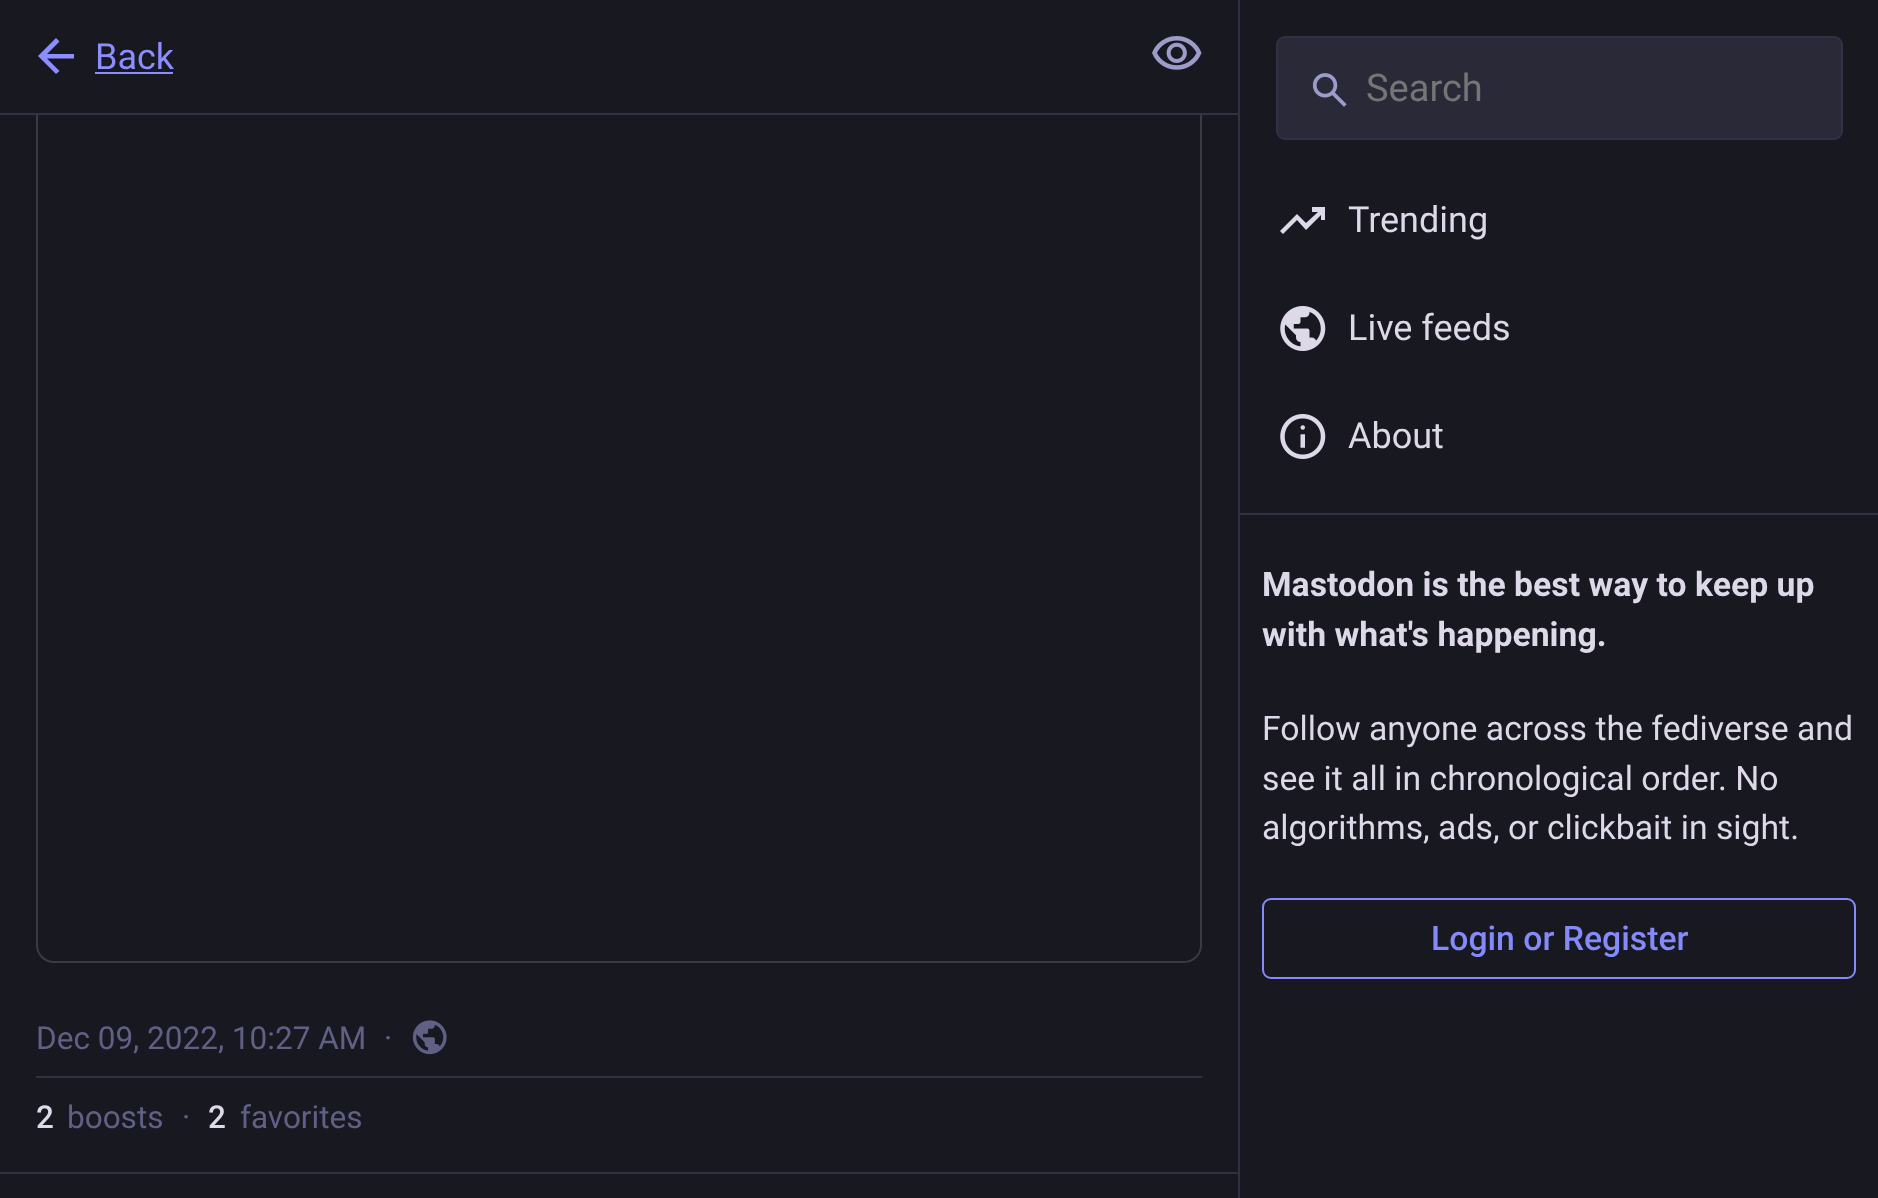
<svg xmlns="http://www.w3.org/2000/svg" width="1878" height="1198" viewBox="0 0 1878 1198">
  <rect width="100%" height="100%" fill="#181821"/>
  <rect x="37" y="33" width="1164" height="929" rx="17" fill="none" stroke="#3a3a42" stroke-width="2"/>
  <rect x="36" y="32" width="1166" height="81" fill="#181821"/>
  <rect x="0" y="113" width="1238" height="2" fill="#313144"/>
  <path d="M47 58.5L59.5 71L56 74L38 56L56 38L59.5 41.5L47 54H74V58.5Z" fill="#8c8dff"/>
  <text x="95" y="69" font-family="Roboto" font-size="36" fill="#8c8dff">Back</text>
  <rect x="95" y="72" width="78" height="2" fill="#8c8dff"/>
  <image x="1152" y="36" width="50" height="34" href="img1.png"/>
  <rect x="36" y="1076" width="1166" height="2" fill="#313144"/>
  <text x="36" y="1049" font-family="Roboto" font-size="31.5" fill="#606085">Dec 09, 2022, 10:27 AM</text>
  <text x="384" y="1049" font-family="Roboto" font-size="31.5" fill="#606085">·</text>
  <image x="412" y="1020" width="35" height="35" href="img2.png"/>
  <text x="36" y="1128" font-family="Roboto" font-size="31.5" font-weight="500" fill="#ddd9e8">2</text>
  <text x="67" y="1128" font-family="Roboto" font-size="31.5" fill="#606085">boosts</text>
  <text x="182" y="1128" font-family="Roboto" font-size="31.5" fill="#606085">·</text>
  <text x="208" y="1128" font-family="Roboto" font-size="31.5" font-weight="500" fill="#ddd9e8">2</text>
  <text x="240" y="1128" font-family="Roboto" font-size="31.5" fill="#606085">favorites</text>
  <rect x="0" y="1172" width="1238" height="2" fill="#313144"/>
  <rect x="1238" y="0" width="2" height="1198" fill="#313144"/>
  <rect x="1277" y="37" width="565" height="102" rx="8" fill="#292938" stroke="#313144" stroke-width="2"/>
  <image x="1312" y="73" width="35" height="34" href="img3.png"/>
  <text x="1366" y="101" font-family="Roboto" font-size="38" fill="#757575">Search</text>
  <path d="M1283 234L1280 231L1297 214L1306 223L1318 212H1312V207H1325V220H1321V215L1306 230L1297 220Z" fill="#ddd9e8"/>
  <text x="1348" y="232" font-family="Roboto" font-size="36" fill="#ddd9e8">Trending</text>
  <image x="1280" y="306" width="46" height="45" href="img4.png"/>
  <text x="1348" y="340" font-family="Roboto" font-size="36" fill="#ddd9e8">Live feeds</text>
  <image x="1280" y="414" width="46" height="45" href="img5.png"/>
  <text x="1348" y="448" font-family="Roboto" font-size="36" fill="#ddd9e8">About</text>
  <rect x="1240" y="513" width="638" height="2" fill="#313144"/>
  <text x="1262" y="596" font-family="Roboto" font-size="33.75" font-weight="bold" fill="#ddd9e8">Mastodon is the best way to keep up</text>
  <text x="1262" y="646" font-family="Roboto" font-size="33.75" font-weight="bold" fill="#ddd9e8">with what's happening.</text>
  <text x="1262" y="740" font-family="Roboto" font-size="33.75" fill="#ddd9e8">Follow anyone across the fediverse and</text>
  <text x="1262" y="790" font-family="Roboto" font-size="33.75" fill="#ddd9e8">see it all in chronological order. No</text>
  <text x="1262" y="839" font-family="Roboto" font-size="33.75" fill="#ddd9e8">algorithms, ads, or clickbait in sight.</text>
  <rect x="1263" y="899" width="592" height="79" rx="8" fill="none" stroke="#858afa" stroke-width="2"/>
  <text x="1431" y="950" font-family="Roboto" font-size="33.75" font-weight="500" fill="#858afa">Login or Register</text>
</svg>
